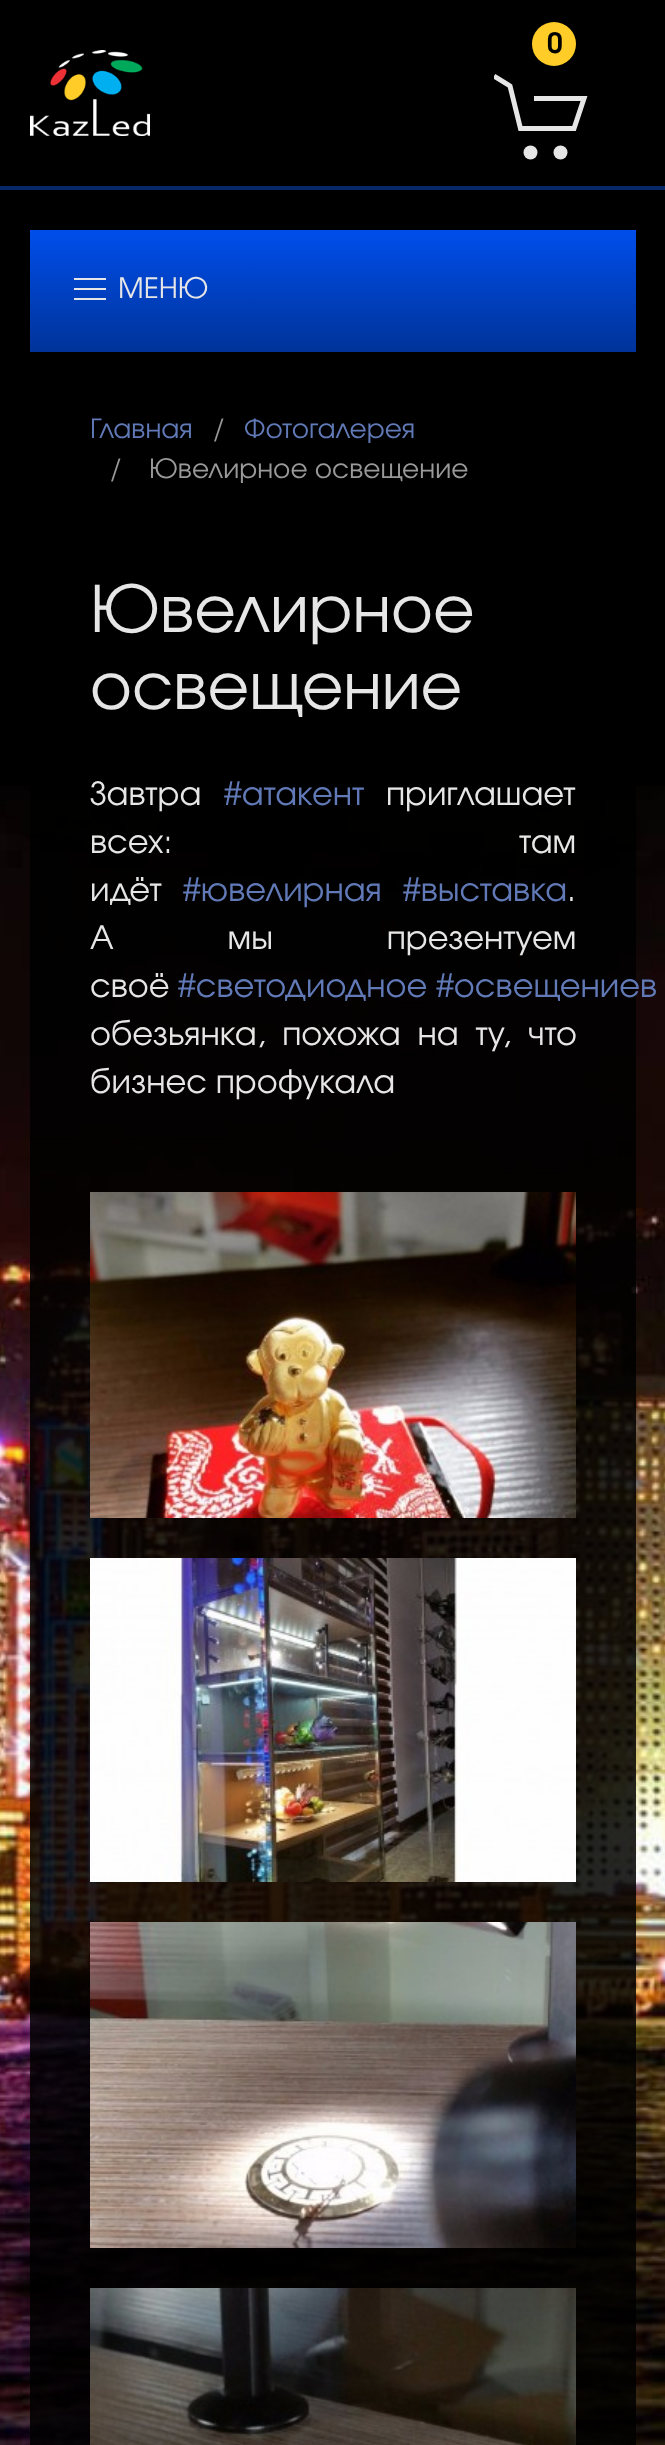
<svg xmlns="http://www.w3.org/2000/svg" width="665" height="2445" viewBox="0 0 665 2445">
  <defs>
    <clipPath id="clip1"><rect x="494" y="66" width="100" height="100"/></clipPath>
    <linearGradient id="g1" gradientUnits="userSpaceOnUse" x1="333" y1="230" x2="333" y2="352"><stop offset="0" stop-color="#004eeb"/><stop offset="1" stop-color="#003399"/></linearGradient>
  </defs>
  <rect width="100%" height="100%" fill="#000000"/>
  <image x="0" y="786" width="665" height="1659" href="img1.png"/>
  <rect x="0" y="186" width="665" height="4" fill="#082766"/>
  <circle cx="554" cy="44" r="22" fill="#ffcc28"/>
  <text x="547" y="53" font-family="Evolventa" font-size="28" font-weight="bold" fill="#000000">0</text>
  <g clip-path="url(#clip1)">
    <path d="M494 76L510 86L520.5 128.5H574L584 98.5H534" fill="none" stroke="#e6e6e6" stroke-width="5"/>
  </g>
  <circle cx="530.5" cy="152.5" r="7" fill="#e6e6e6"/>
  <circle cx="560.5" cy="152.5" r="7" fill="#e6e6e6"/>
  <image x="30" y="50" width="120" height="86" href="img2.png"/>
  <rect x="30" y="230" width="606" height="122" fill="url(#g1)"/>
  <rect x="74" y="278" width="32" height="2" fill="#e6e6e6"/>
  <rect x="74" y="288" width="32" height="2" fill="#e6e6e6"/>
  <rect x="74" y="298" width="32" height="2" fill="#e6e6e6"/>
  <text x="118" y="298" font-family="Evolventa" font-size="28" fill="#e6e6e6">МЕНЮ</text>
  <text x="90" y="438" font-family="Evolventa" font-size="26.4" fill="#617ab7">Главная</text>
  <text x="213" y="438" font-family="Evolventa" font-size="26.4" fill="#999999">/</text>
  <text x="244" y="438" font-family="Evolventa" font-size="26.4" fill="#617ab7">Фотогалерея</text>
  <text x="110" y="478" font-family="Evolventa" font-size="26.4" fill="#999999">/</text>
  <text x="149" y="478" font-family="Evolventa" font-size="26.4" fill="#999999">Ювелирное освещение</text>
  <text x="90" y="632" font-family="Evolventa" font-size="64" fill="#e6e6e6">Ювелирное</text>
  <text x="90" y="709" font-family="Evolventa" font-size="64" fill="#e6e6e6">освещение</text>
  <text x="90" y="805" font-family="Evolventa" font-size="32" fill="#e6e6e6">Завтра</text>
  <text x="224" y="805" font-family="Evolventa" font-size="32" fill="#617ab7">#атакент</text>
  <text x="386" y="805" font-family="Evolventa" font-size="32" fill="#e6e6e6">приглашает</text>
  <text x="90" y="853" word-spacing="338" font-family="Evolventa" font-size="32" fill="#e6e6e6">всех: там</text>
  <text x="90" y="901" font-family="Evolventa" font-size="32" fill="#e6e6e6">идёт</text>
  <text x="183" y="901" font-family="Evolventa" font-size="32" fill="#617ab7">#ювелирная</text>
  <text x="403" y="901" font-family="Evolventa" font-size="32" fill="#617ab7">#выставка</text>
  <text x="567" y="901" font-family="Evolventa" font-size="32" fill="#e6e6e6">.</text>
  <text x="90" y="949" word-spacing="105" font-family="Evolventa" font-size="32" fill="#e6e6e6">А мы презентуем</text>
  <text x="90" y="997" font-family="Evolventa" font-size="32" fill="#e6e6e6">своё</text>
  <text x="178" y="997" font-family="Evolventa" font-size="32" fill="#617ab7">#светодиодное #освещениев</text>
  <text x="90" y="1045" word-spacing="8" font-family="Evolventa" font-size="32" fill="#e6e6e6">обезьянка, похожа на ту, что</text>
  <text x="90" y="1093" font-family="Evolventa" font-size="32" fill="#e6e6e6">бизнес профукала</text>
  <image x="90" y="1192" width="486" height="326" href="img3.png"/>
  <image x="90" y="1558" width="486" height="324" href="img4.png"/>
  <image x="90" y="1922" width="486" height="326" href="img5.png"/>
  <image x="90" y="2288" width="486" height="157" href="img6.png"/>
</svg>
